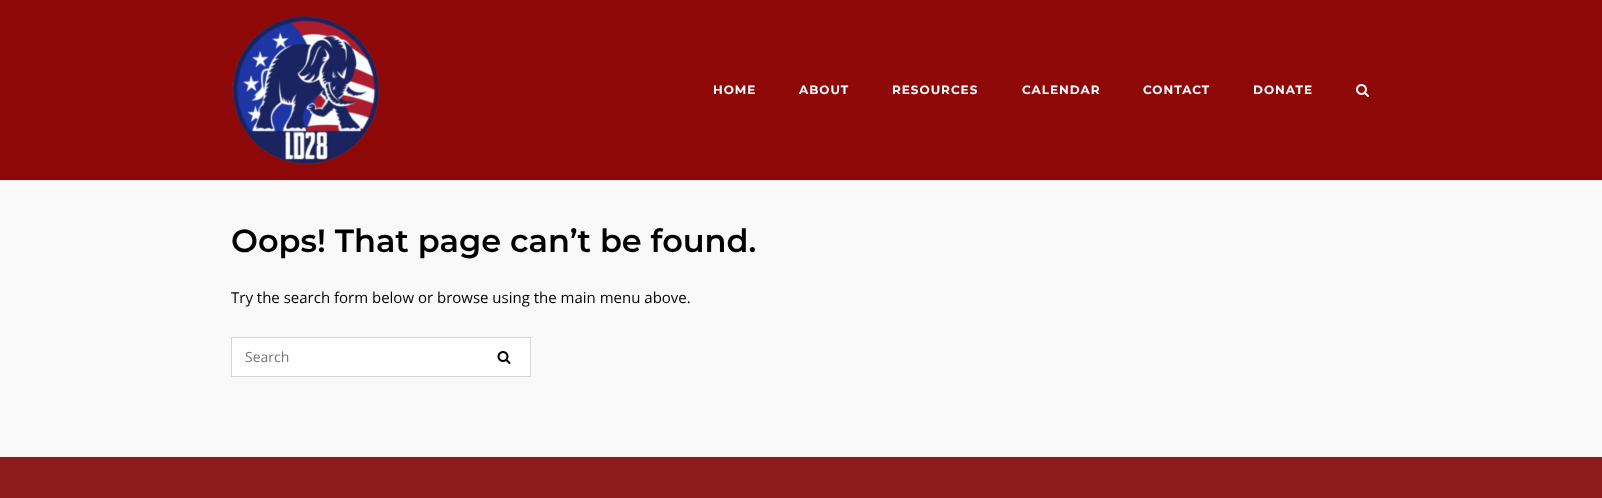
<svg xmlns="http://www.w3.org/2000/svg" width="1602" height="498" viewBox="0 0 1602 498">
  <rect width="100%" height="100%" fill="#f9f9f9"/>
  <rect x="0" y="0" width="1602" height="180" fill="#8e0808"/>
  <rect x="0" y="180" width="1602" height="1" fill="#e6e6e6"/>
  <image x="232" y="15" width="148" height="150" href="img1.png"/>
  <text x="713" y="94" font-family="Montserrat" font-size="12" font-weight="bold" letter-spacing="1" fill="#ffffff">HOME</text>
  <text x="799" y="94" font-family="Montserrat" font-size="12" font-weight="bold" letter-spacing="1" fill="#ffffff">ABOUT</text>
  <text x="892" y="94" font-family="Montserrat" font-size="12" font-weight="bold" letter-spacing="1" fill="#ffffff">RESOURCES</text>
  <text x="1022" y="94" font-family="Montserrat" font-size="12" font-weight="bold" letter-spacing="1" fill="#ffffff">CALENDAR</text>
  <text x="1143" y="94" font-family="Montserrat" font-size="12" font-weight="bold" letter-spacing="1" fill="#ffffff">CONTACT</text>
  <text x="1253" y="94" font-family="Montserrat" font-size="12" font-weight="bold" letter-spacing="1" fill="#ffffff">DONATE</text>
  <image x="1356" y="84" width="13" height="13" href="img2.png"/>
  <text x="231" y="252" font-family="Montserrat" font-size="32" font-weight="600" fill="#000000">Oops! That page can’t be found.</text>
  <text x="231" y="303" font-family="Open Sans" font-size="15" fill="#000000">Try the search form below or browse using the main menu above.</text>
  <rect x="231.5" y="337.5" width="299" height="39" fill="#ffffff" stroke="#d6d6d6"/>
  <text x="245" y="362" font-family="Open Sans" font-size="14" fill="#757575">Search</text>
  <image x="497" y="351" width="14" height="13" href="img3.png"/>
  <rect x="0" y="457" width="1602" height="41" fill="#8e1c1c"/>
</svg>
